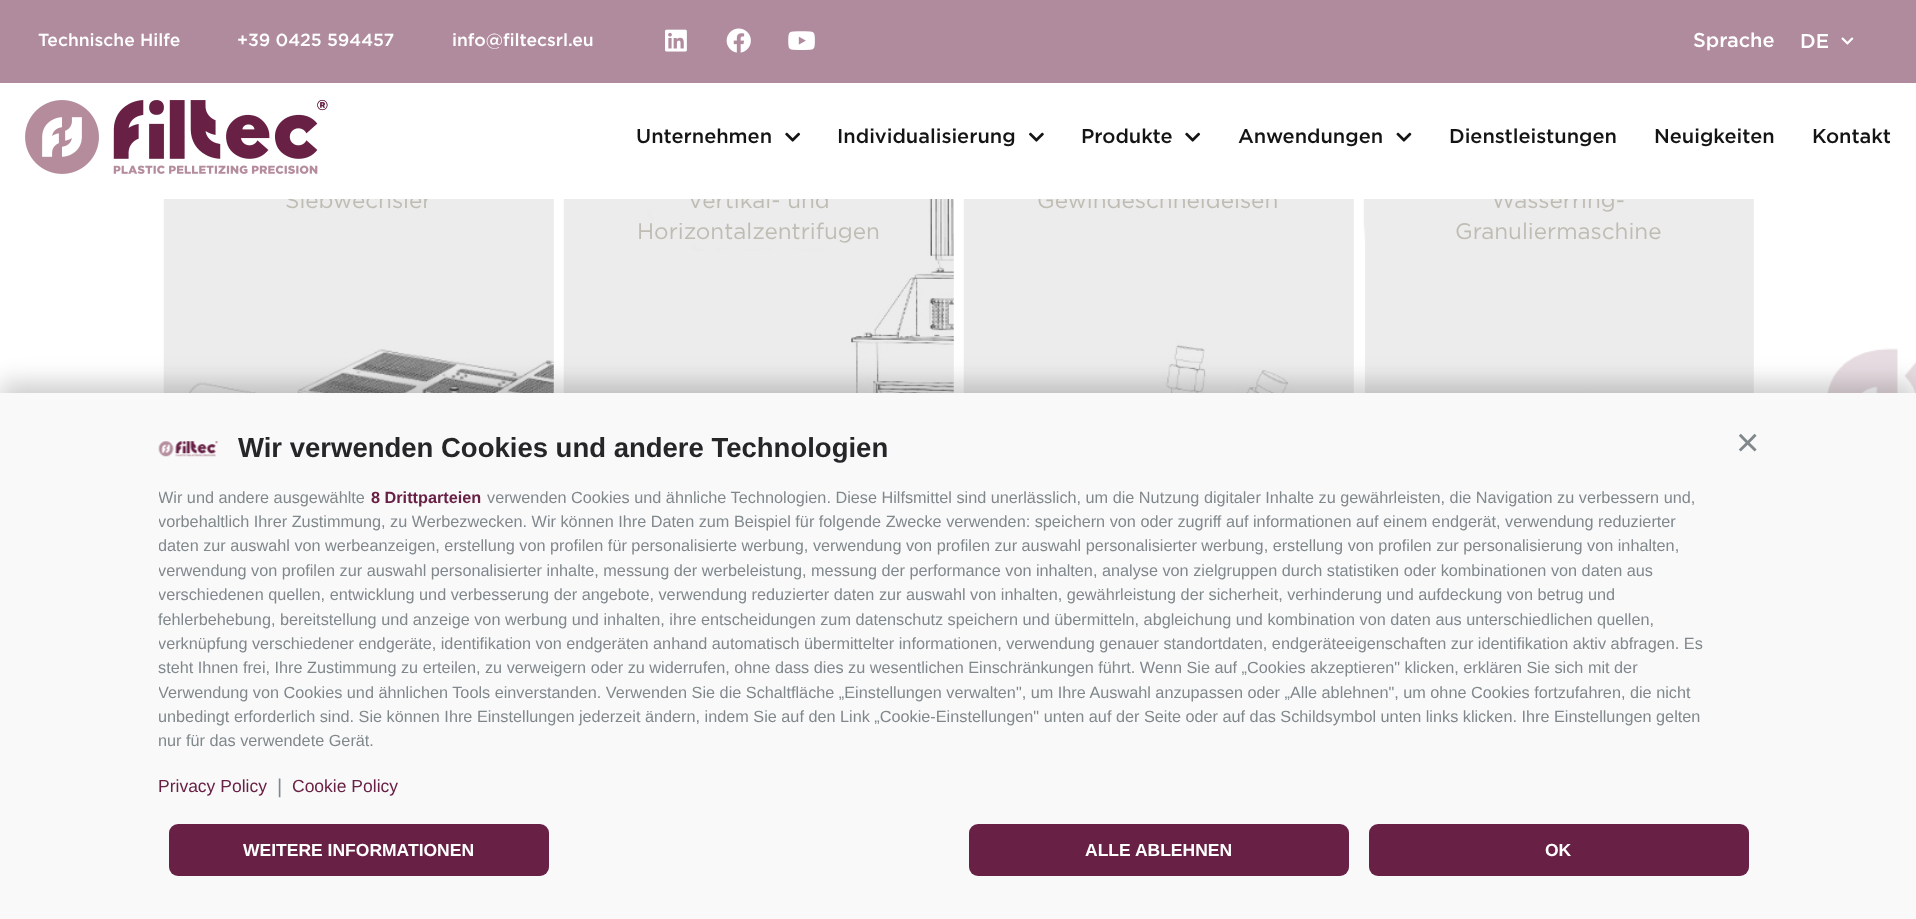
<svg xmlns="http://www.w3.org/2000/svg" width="1916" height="919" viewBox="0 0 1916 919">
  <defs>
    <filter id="blur1" x="-50%" y="-200%" width="200%" height="500%"><feGaussianBlur stdDeviation="12.5"/></filter>
    <clipPath id="clip1"><rect x="159" y="485" width="1600" height="269"/></clipPath>
  </defs>
  <rect width="100%" height="100%" fill="#ffffff"/>
  <rect x="0" y="0" width="1916" height="83" fill="#af8b9d"/>
  <text x="38" y="46" font-family="Gotham" font-size="17.5" font-weight="500" fill="#ffffff">Technische Hilfe</text>
  <text x="237" y="46" font-family="Gotham" font-size="17.5" font-weight="500" fill="#ffffff">+39 0425 594457</text>
  <text x="452" y="46" font-family="Gotham" font-size="17.5" font-weight="500" fill="#ffffff">info@filtecsrl.eu</text>
  <image x="665" y="29" width="22" height="23" href="img1.png"/>
  <image x="726" y="28" width="25" height="25" href="img2.png"/>
  <image x="788" y="31" width="27" height="19" href="img3.png"/>
  <text x="1693" y="47" font-family="Gotham" font-size="20" font-weight="500" fill="#ffffff">Sprache</text>
  <text x="1800" y="48" font-family="Gotham" font-size="20" font-weight="500" fill="#ffffff">DE</text>
  <image x="1841" y="37" width="13" height="8" href="img4.png"/>
  <image x="163" y="199" width="391" height="194" href="img10.png"/>
  <text x="285" y="208" font-family="Gotham" font-size="22.5" fill="#bfbcb3">Siebwechsler</text>
  <image x="563" y="199" width="391" height="194" href="img11.png"/>
  <text x="687" y="208" font-family="Gotham" font-size="22.5" fill="#bfbcb3">Vertikal- und</text>
  <image x="963" y="199" width="391" height="194" href="img12.png"/>
  <text x="1037" y="208" font-family="Gotham" font-size="22.5" fill="#bfbcb3">Gewindeschneideisen</text>
  <image x="1363" y="199" width="391" height="194" href="img13.png"/>
  <text x="1491" y="208" font-family="Gotham" font-size="22.5" fill="#bfbcb3">Wasserring-</text>
  <rect x="286" y="191" width="1328" height="8" fill="#ffffff"/>
  <image x="25" y="100" width="303" height="74" href="img5.png"/>
  <text x="636" y="143" font-family="Gotham" font-size="20" font-weight="500" fill="#141414">Unternehmen</text>
  <image x="785" y="132" width="16" height="10" href="img6.png"/>
  <text x="837" y="143" font-family="Gotham" font-size="20" font-weight="500" fill="#141414">Individualisierung</text>
  <image x="1029" y="132" width="15" height="10" href="img7.png"/>
  <text x="1081" y="143" font-family="Gotham" font-size="20" font-weight="500" fill="#141414">Produkte</text>
  <image x="1185" y="132" width="16" height="10" href="img6.png"/>
  <text x="1238" y="143" font-family="Gotham" font-size="20" font-weight="500" fill="#141414">Anwendungen</text>
  <image x="1396" y="132" width="16" height="10" href="img8.png"/>
  <text x="1449" y="143" font-family="Gotham" font-size="20" font-weight="500" fill="#141414">Dienstleistungen</text>
  <text x="1654" y="143" font-family="Gotham" font-size="20" font-weight="500" fill="#141414">Neuigkeiten</text>
  <text x="1812" y="143" font-family="Gotham" font-size="20" font-weight="500" fill="#141414">Kontakt</text>
  <image x="1827" y="348" width="89" height="45" href="img9.png"/>
  <text x="637" y="239" font-family="Gotham" font-size="22.5" fill="#bfbcb3">Horizontalzentrifugen</text>
  <text x="1455" y="239" font-family="Gotham" font-size="22.5" fill="#bfbcb3">Granuliermaschine</text>
  <rect x="0" y="383" width="1916" height="527" fill="#000000" fill-opacity="0.2" filter="url(#blur1)"/>
  <rect x="0" y="393" width="1916" height="526" fill="#f9f9f9"/>
  <image x="158" y="441" width="60" height="16" href="img14.png"/>
  <text x="238" y="457" font-family="Liberation Sans" font-size="27.5" font-weight="bold" fill="#262628">Wir verwenden Cookies und andere Technologien</text>
  <text x="1736" y="456" font-family="Liberation Sans" font-size="40" fill="#80888c">×</text>
  <g clip-path="url(#clip1)">
    <text x="158" y="503" font-family="Liberation Sans" font-size="16.25" fill="#80888c">Wir und andere ausgewählte</text>
  </g>
  <text x="371" y="503" font-family="Liberation Sans" font-size="16.25" font-weight="bold" fill="#682145">8 Drittparteien</text>
  <text x="487" y="503" font-family="Liberation Sans" font-size="16.25" fill="#80888c">verwenden Cookies und ähnliche Technologien. Diese Hilfsmittel sind unerlässlich, um die Nutzung digitaler Inhalte zu gewährleisten, die Navigation zu verbessern und,</text>
  <g clip-path="url(#clip1)">
    <text x="158" y="527" font-family="Liberation Sans" font-size="16.25" fill="#80888c">vorbehaltlich Ihrer Zustimmung, zu Werbezwecken. Wir können Ihre Daten zum Beispiel für folgende Zwecke verwenden: speichern von oder zugriff auf informationen auf einem endgerät, verwendung reduzierter</text>
    <text x="158" y="551" font-family="Liberation Sans" font-size="16.25" fill="#80888c">daten zur auswahl von werbeanzeigen, erstellung von profilen für personalisierte werbung, verwendung von profilen zur auswahl personalisierter werbung, erstellung von profilen zur personalisierung von inhalten,</text>
    <text x="158" y="576" font-family="Liberation Sans" font-size="16.25" fill="#80888c">verwendung von profilen zur auswahl personalisierter inhalte, messung der werbeleistung, messung der performance von inhalten, analyse von zielgruppen durch statistiken oder kombinationen von daten aus</text>
    <text x="158" y="600" font-family="Liberation Sans" font-size="16.25" fill="#80888c">verschiedenen quellen, entwicklung und verbesserung der angebote, verwendung reduzierter daten zur auswahl von inhalten, gewährleistung der sicherheit, verhinderung und aufdeckung von betrug und</text>
  </g>
  <text x="158" y="625" font-family="Liberation Sans" font-size="16.25" fill="#80888c">fehlerbehebung, bereitstellung und anzeige von werbung und inhalten, ihre entscheidungen zum datenschutz speichern und übermitteln, abgleichung und kombination von daten aus unterschiedlichen quellen,</text>
  <g clip-path="url(#clip1)">
    <text x="158" y="649" font-family="Liberation Sans" font-size="16.25" fill="#80888c">verknüpfung verschiedener endgeräte, identifikation von endgeräten anhand automatisch übermittelter informationen, verwendung genauer standortdaten, endgeräteeigenschaften zur identifikation aktiv abfragen. Es</text>
  </g>
  <text x="158" y="673" font-family="Liberation Sans" font-size="16.25" fill="#80888c">steht Ihnen frei, Ihre Zustimmung zu erteilen, zu verweigern oder zu widerrufen, ohne dass dies zu wesentlichen Einschränkungen führt. Wenn Sie auf „Cookies akzeptieren" klicken, erklären Sie sich mit der</text>
  <g clip-path="url(#clip1)">
    <text x="158" y="698" font-family="Liberation Sans" font-size="16.25" fill="#80888c">Verwendung von Cookies und ähnlichen Tools einverstanden. Verwenden Sie die Schaltfläche „Einstellungen verwalten", um Ihre Auswahl anzupassen oder „Alle ablehnen", um ohne Cookies fortzufahren, die nicht</text>
  </g>
  <text x="158" y="722" font-family="Liberation Sans" font-size="16.25" fill="#80888c">unbedingt erforderlich sind. Sie können Ihre Einstellungen jederzeit ändern, indem Sie auf den Link „Cookie-Einstellungen" unten auf der Seite oder auf das Schildsymbol unten links klicken. Ihre Einstellungen gelten</text>
  <text x="158" y="746" font-family="Liberation Sans" font-size="16.25" fill="#80888c">nur für das verwendete Gerät.</text>
  <text x="158" y="792" font-family="Liberation Sans" font-size="17.5" fill="#682145">Privacy Policy</text>
  <text x="277" y="793" font-family="Liberation Sans" font-size="20" fill="#80888c">|</text>
  <text x="292" y="792" font-family="Liberation Sans" font-size="17.5" fill="#682145">Cookie Policy</text>
  <rect x="169" y="824" width="380" height="52" rx="9" fill="#682145"/>
  <text x="243" y="856" font-family="Liberation Sans" font-size="17.5" font-weight="bold" fill="#ffffff">WEITERE INFORMATIONEN</text>
  <rect x="969" y="824" width="380" height="52" rx="9" fill="#682145"/>
  <text x="1085" y="856" font-family="Liberation Sans" font-size="17.5" font-weight="bold" fill="#ffffff">ALLE ABLEHNEN</text>
  <rect x="1369" y="824" width="380" height="52" rx="9" fill="#682145"/>
  <text x="1545" y="856" font-family="Liberation Sans" font-size="17.5" font-weight="bold" fill="#ffffff">OK</text>
</svg>
